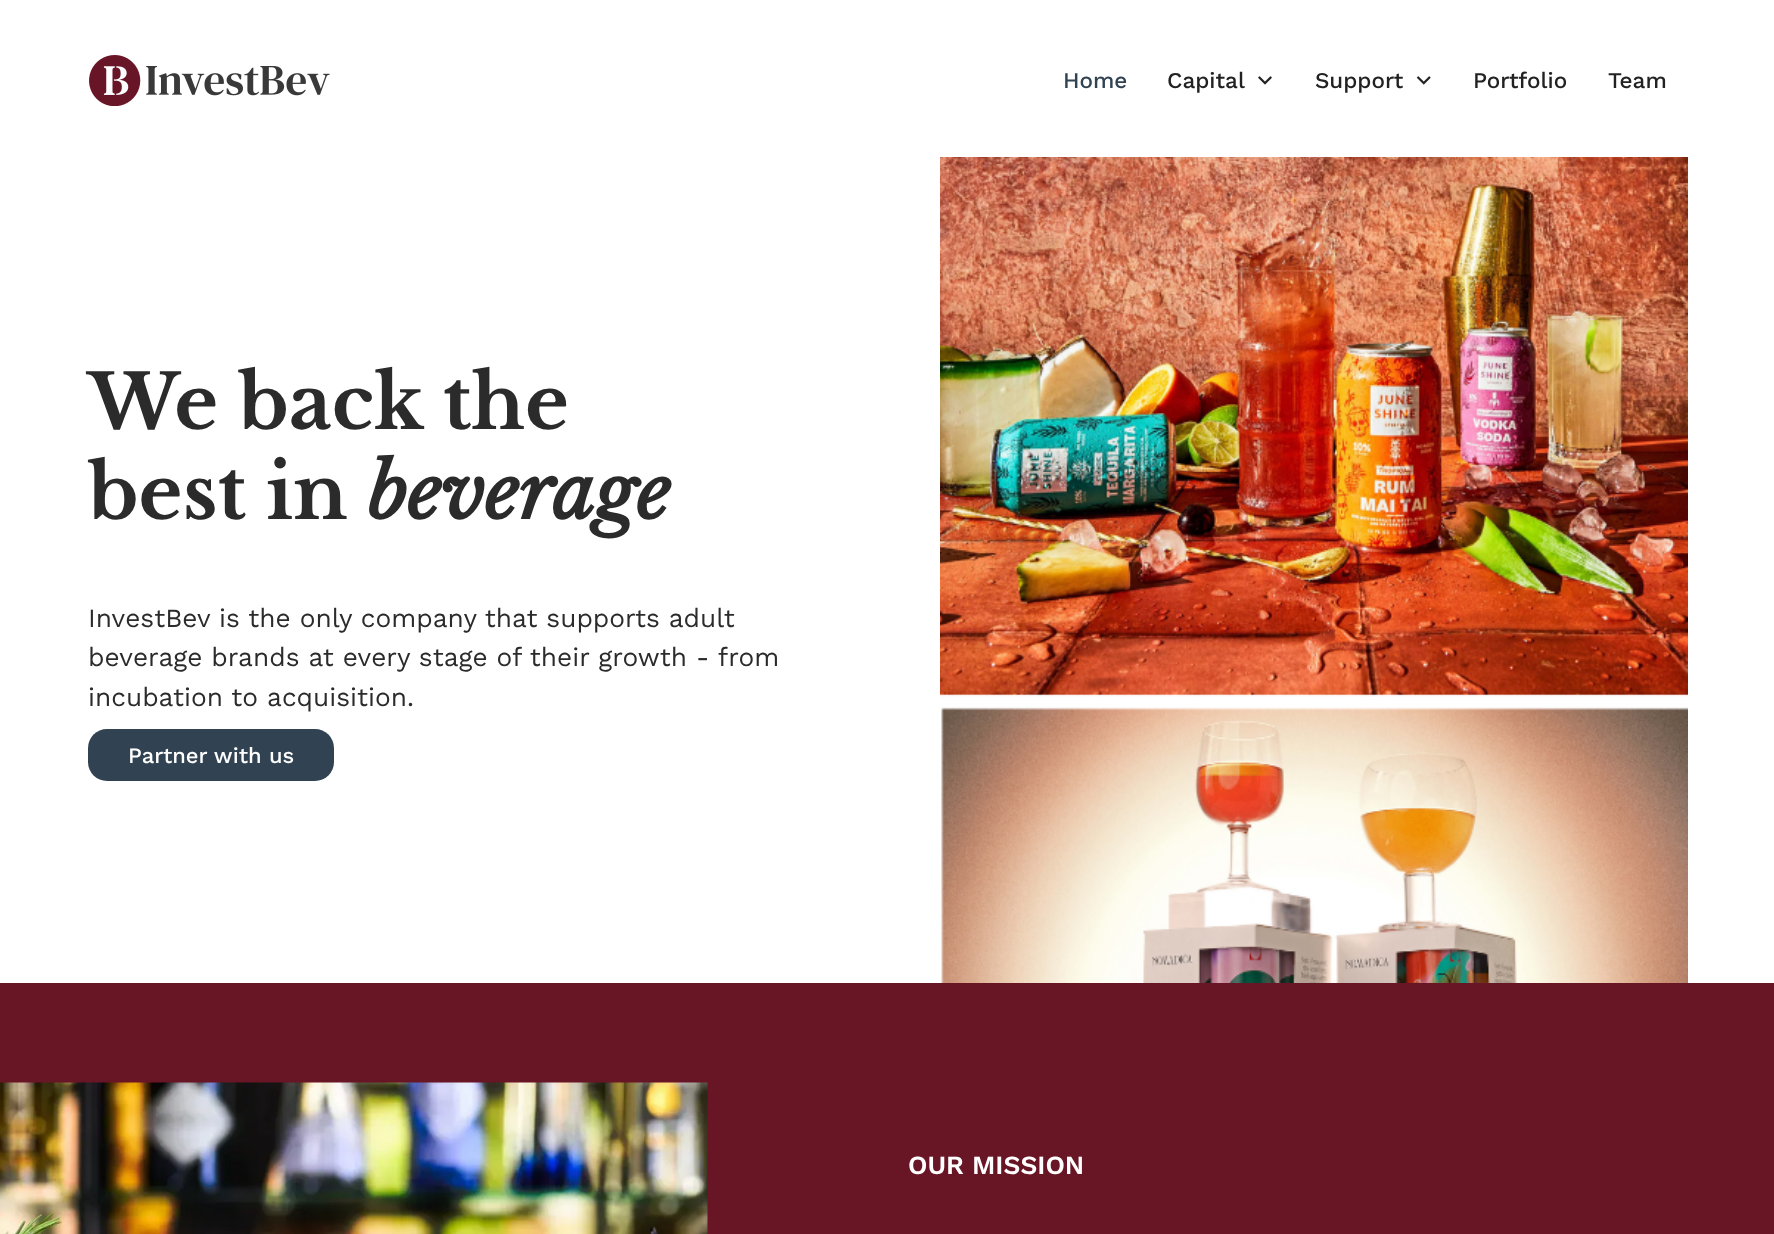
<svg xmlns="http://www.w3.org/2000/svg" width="1774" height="1234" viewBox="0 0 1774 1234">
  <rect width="100%" height="100%" fill="#ffffff"/>
  <image x="89" y="55" width="241" height="51" href="img1.png"/>
  <text x="1063" y="88" font-family="Work Sans" font-size="22.5" font-weight="500" fill="#314252">Home</text>
  <text x="1167" y="88" font-family="Work Sans" font-size="22.5" font-weight="500" fill="#222222">Capital</text>
  <image x="1258" y="76" width="14" height="9" href="img2.png"/>
  <text x="1315" y="88" font-family="Work Sans" font-size="22.5" font-weight="500" fill="#222222">Support</text>
  <image x="1416" y="76" width="15" height="9" href="img3.png"/>
  <text x="1473" y="88" font-family="Work Sans" font-size="22.5" font-weight="500" fill="#222222">Portfolio</text>
  <text x="1608" y="88" font-family="Work Sans" font-size="22.5" font-weight="500" fill="#222222">Team</text>
  <text x="88" y="429" font-family="Libre Baskerville" font-size="75" font-weight="bold" fill="#2b2b2b">We back the</text>
  <text x="88" y="519" font-family="Libre Baskerville" font-size="75" font-weight="bold" fill="#2b2b2b">best in</text>
  <text x="367" y="519" font-family="Libre Baskerville" font-size="75" font-weight="bold" font-style="italic" fill="#2b2b2b">beverage</text>
  <text x="88" y="627" font-family="Work Sans" font-size="26.25" fill="#2b2b2b">InvestBev is the only company that supports adult</text>
  <text x="88" y="666" font-family="Work Sans" font-size="26.25" fill="#2b2b2b">beverage brands at every stage of their growth - from</text>
  <text x="88" y="706" font-family="Work Sans" font-size="26.25" fill="#2b2b2b">incubation to acquisition.</text>
  <rect x="88" y="729" width="246" height="52" rx="19" fill="#314252"/>
  <text x="128" y="763" font-family="Work Sans" font-size="22" font-weight="500" fill="#ffffff">Partner with us</text>
  <image x="940" y="157" width="748" height="826" href="img4.png"/>
  <rect x="0" y="983" width="1774" height="251" fill="#681525"/>
  <image x="0" y="1082" width="708" height="152" href="img5.png"/>
  <text x="908" y="1174" font-family="Work Sans" font-size="26.25" font-weight="600" fill="#ffffff">OUR MISSION</text>
</svg>
